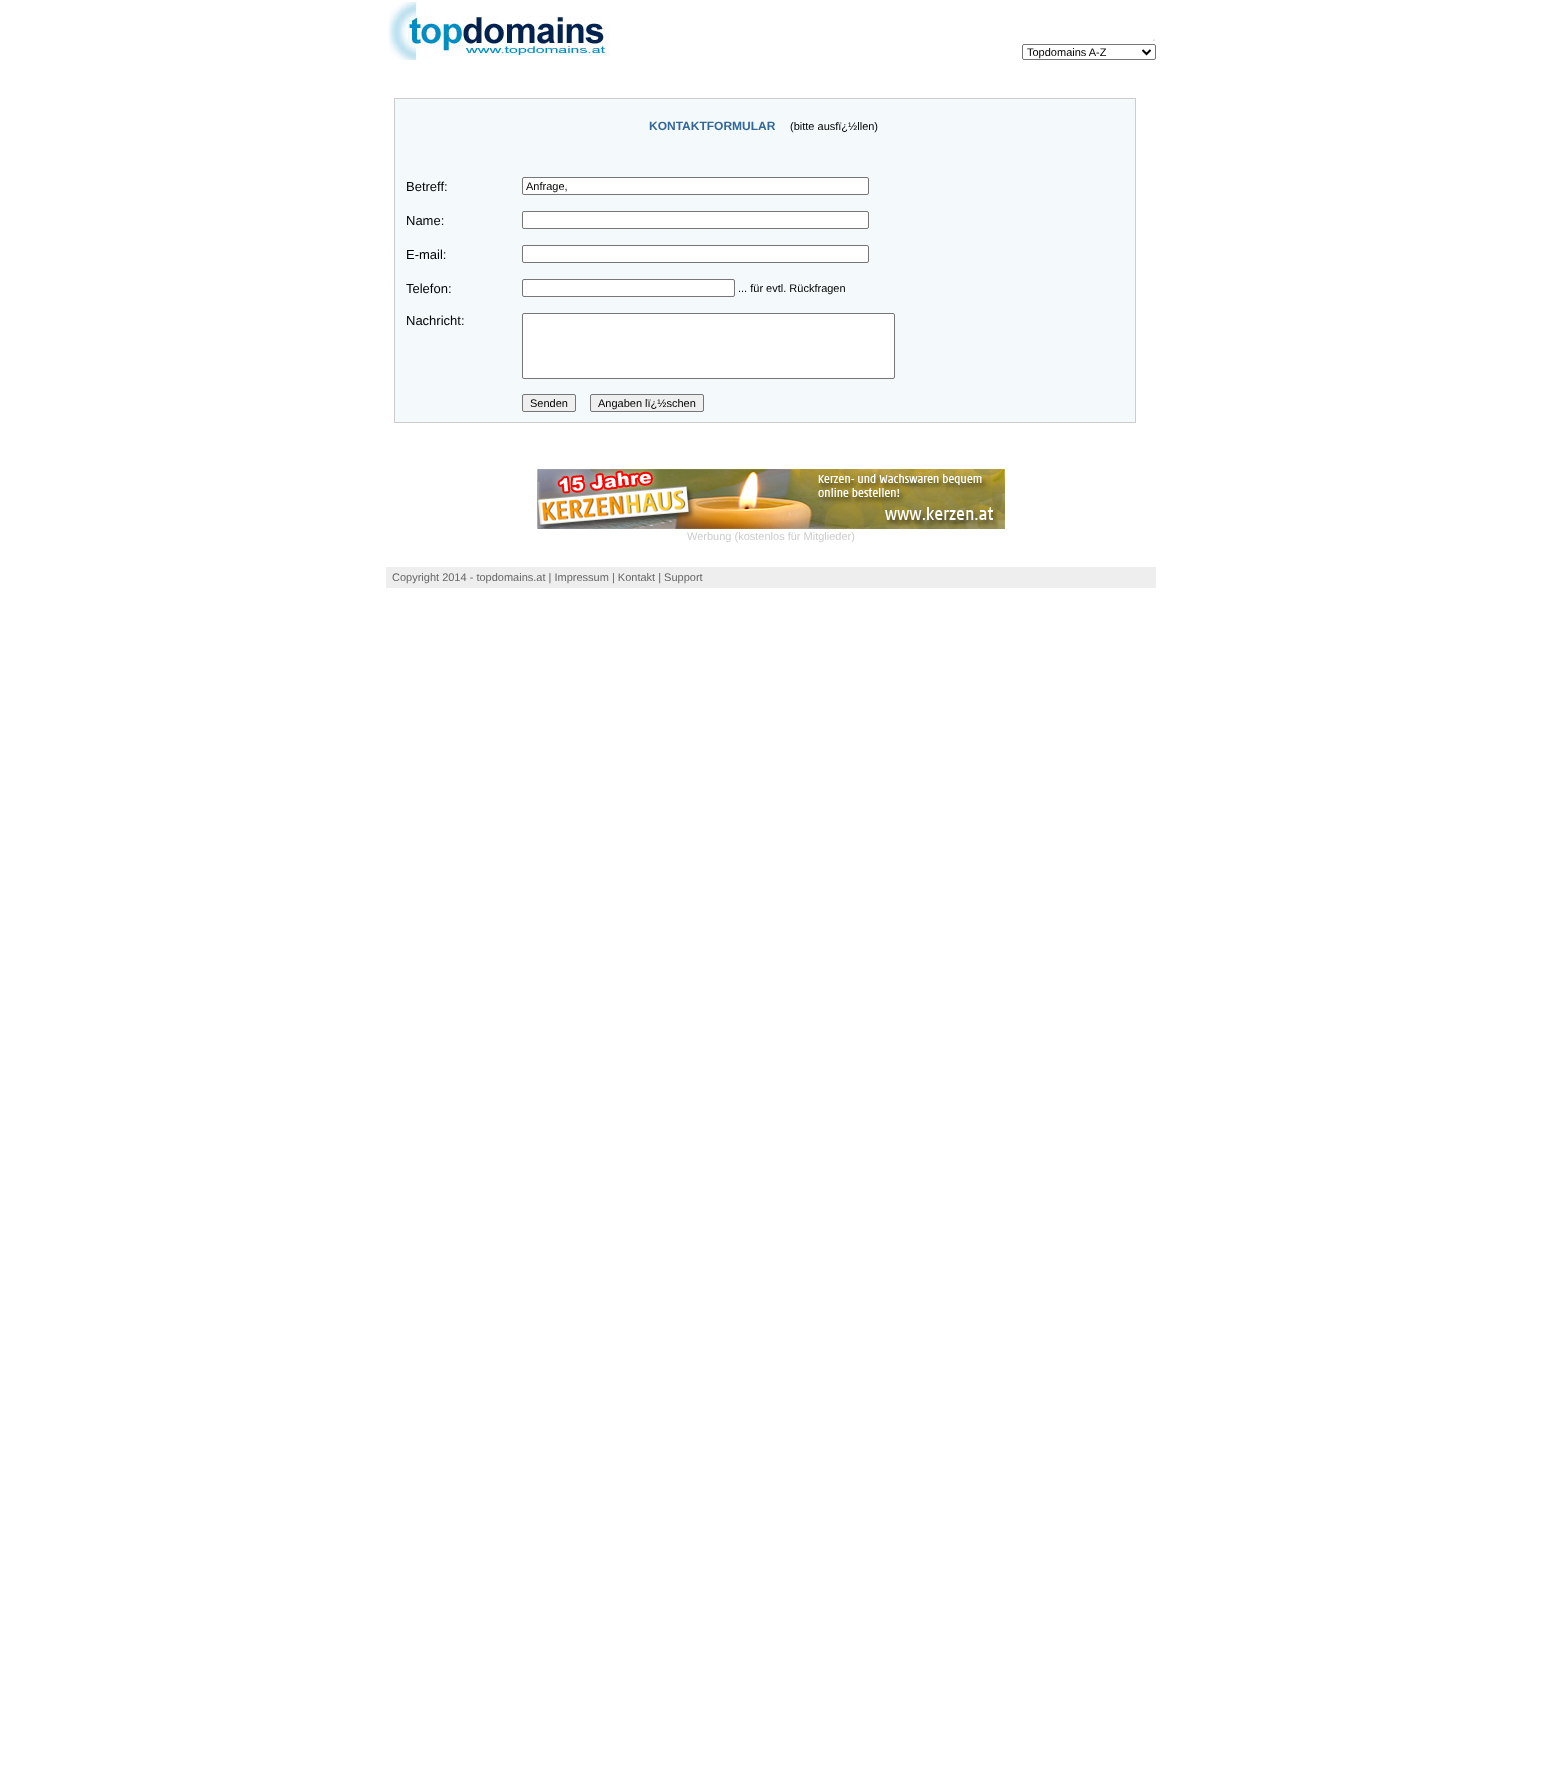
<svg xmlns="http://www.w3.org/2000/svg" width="1541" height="1790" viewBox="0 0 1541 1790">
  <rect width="100%" height="100%" fill="#ffffff"/>
  <image x="388" y="0" width="222" height="60" href="img1.png"/>
  <text x="1152" y="41" font-family="Liberation Sans" font-size="13" fill="#cccccc">.</text>
  <rect x="1022.5" y="44.5" width="133" height="15" rx="1.5" fill="none" stroke="#767676"/>
  <path d="M1142.5 50L1146.5 54L1150.5 50" fill="none" stroke="#000000" stroke-width="2"/>
  <text x="1027" y="56" font-family="Liberation Sans" font-size="11" fill="#000000">Topdomains A-Z</text>
  <rect x="394" y="98" width="742" height="325" fill="#cccccc"/>
  <rect x="395" y="99" width="740" height="323" fill="#f4fafc"/>
  <text x="649" y="130" font-family="Liberation Sans" font-size="12" font-weight="bold" fill="#336699">KONTAKTFORMULAR</text>
  <text x="790" y="130" font-family="Liberation Sans" font-size="11" fill="#000000">(bitte ausfï¿½llen)</text>
  <text x="406" y="191" font-family="Liberation Sans" font-size="13" fill="#000000">Betreff:</text>
  <rect x="522.5" y="177.5" width="346" height="17" rx="1.5" fill="#ffffff" stroke="#767676"/>
  <text x="526" y="190" font-family="Liberation Sans" font-size="11" fill="#000000">Anfrage,</text>
  <text x="406" y="225" font-family="Liberation Sans" font-size="13" fill="#000000">Name:</text>
  <rect x="522.5" y="211.5" width="346" height="17" rx="1.5" fill="#ffffff" stroke="#767676"/>
  <text x="406" y="259" font-family="Liberation Sans" font-size="13" fill="#000000">E-mail:</text>
  <rect x="522.5" y="245.5" width="346" height="17" rx="1.5" fill="#ffffff" stroke="#767676"/>
  <text x="406" y="293" font-family="Liberation Sans" font-size="13" fill="#000000">Telefon:</text>
  <rect x="522.5" y="279.5" width="212" height="17" rx="1.5" fill="#ffffff" stroke="#767676"/>
  <text x="738" y="292" font-family="Liberation Sans" font-size="11" fill="#000000">... für evtl. Rückfragen</text>
  <text x="406" y="325" font-family="Liberation Sans" font-size="13" fill="#000000">Nachricht:</text>
  <rect x="522.5" y="313.5" width="372" height="65" rx="1.5" fill="#ffffff" stroke="#767676"/>
  <rect x="522.5" y="394.5" width="53" height="17" rx="1.5" fill="#efefef" stroke="#767676"/>
  <text x="530" y="407" font-family="Liberation Sans" font-size="11" fill="#000000">Senden</text>
  <rect x="590.5" y="394.5" width="113" height="17" rx="1.5" fill="#efefef" stroke="#767676"/>
  <text x="598" y="407" font-family="Liberation Sans" font-size="11" fill="#000000">Angaben lï¿½schen</text>
  <image x="537" y="469" width="468" height="60" href="img2.png"/>
  <text x="687" y="540" font-family="Liberation Sans" font-size="11" fill="#cccccc">Werbung (kostenlos für Mitglieder)</text>
  <rect x="386" y="567" width="770" height="21" fill="#eeeeee"/>
  <text x="392" y="581" font-family="Liberation Sans" font-size="11" fill="#666666">Copyright 2014 - topdomains.at | Impressum | Kontakt | Support</text>
</svg>
